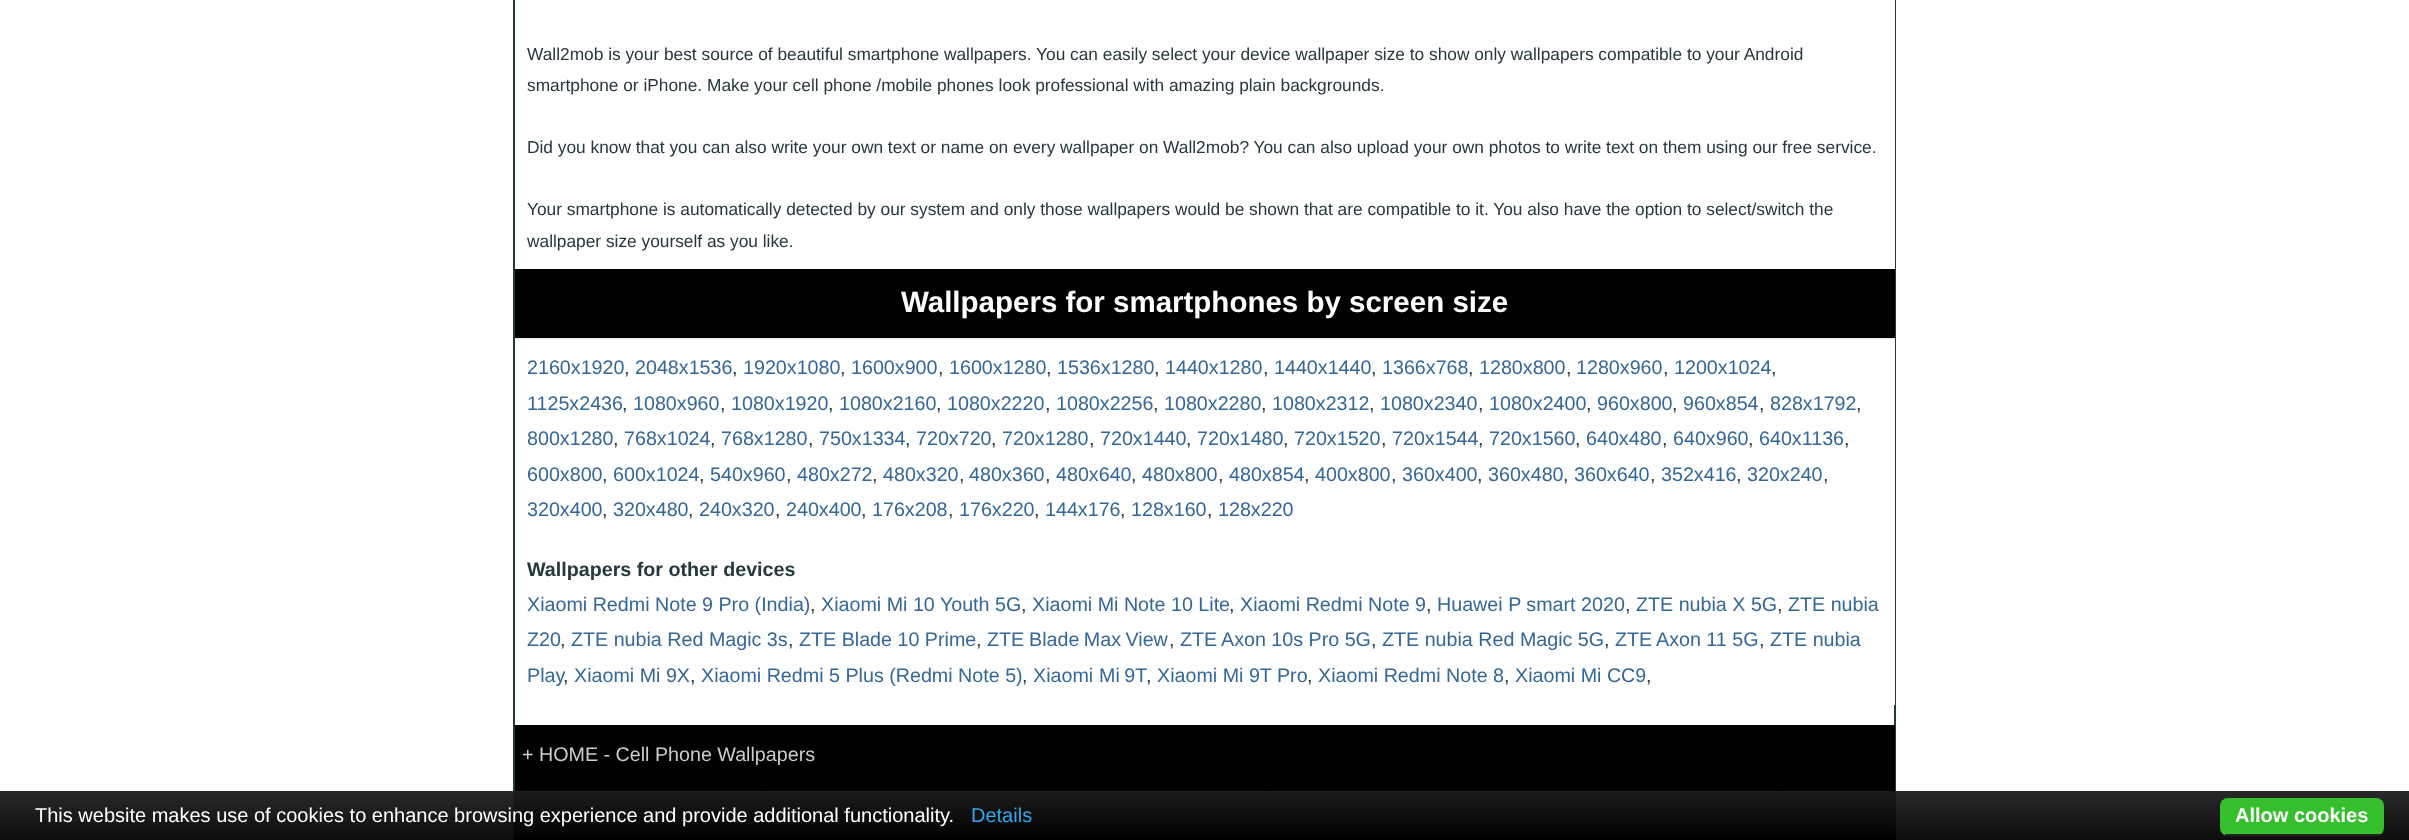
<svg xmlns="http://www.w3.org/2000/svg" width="2409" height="840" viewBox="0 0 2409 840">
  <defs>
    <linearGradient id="g1" gradientUnits="userSpaceOnUse" x1="1209" y1="790" x2="1209" y2="840"><stop offset="0" stop-color="#1e1e1e" stop-opacity="0.95"/><stop offset="1" stop-color="#000000" stop-opacity="0.95"/></linearGradient>
  </defs>
  <rect width="100%" height="100%" fill="#ffffff"/>
  <rect x="514" y="-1" width="1381" height="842" fill="none" stroke="#25383c" stroke-width="2"/>
  <text x="527" y="60" font-family="Liberation Sans" font-size="17.32" fill="#25383c">Wall2mob is your best source of beautiful smartphone wallpapers. You can easily select your device wallpaper size to show only wallpapers compatible to your Android</text>
  <text x="527" y="91" font-family="Liberation Sans" font-size="17.32" fill="#25383c">smartphone or iPhone. Make your cell phone /mobile phones look professional with amazing plain backgrounds.</text>
  <text x="527" y="153" font-family="Liberation Sans" font-size="17.32" fill="#25383c">Did you know that you can also write your own text or name on every wallpaper on Wall2mob? You can also upload your own photos to write text on them using our free service.</text>
  <text x="527" y="215" font-family="Liberation Sans" font-size="17.32" fill="#25383c">Your smartphone is automatically detected by our system and only those wallpapers would be shown that are compatible to it. You also have the option to select/switch the</text>
  <text x="527" y="247" font-family="Liberation Sans" font-size="17.32" fill="#25383c">wallpaper size yourself as you like.</text>
  <rect x="1894" y="0" width="1" height="269" fill="#ffffff"/>
  <rect x="515" y="269" width="1380" height="69" fill="#000000"/>
  <rect x="515" y="338" width="1380" height="1" fill="#e0eee0"/>
  <text x="901" y="312" font-family="Liberation Sans" font-size="29.5" font-weight="bold" fill="#ffffff">Wallpapers for smartphones by screen size</text>
  <rect x="1894" y="339" width="1" height="366" fill="#ffffff"/>
  <text x="527" y="374" font-family="Liberation Sans" font-size="19.7" fill="#336699">2160x1920</text>
  <text x="624" y="374" font-family="Liberation Sans" font-size="19.7" fill="#25383c">,</text>
  <text x="635" y="374" font-family="Liberation Sans" font-size="19.7" fill="#336699">2048x1536</text>
  <text x="732" y="374" font-family="Liberation Sans" font-size="19.7" fill="#25383c">,</text>
  <text x="743" y="374" font-family="Liberation Sans" font-size="19.7" fill="#336699">1920x1080</text>
  <text x="840" y="374" font-family="Liberation Sans" font-size="19.7" fill="#25383c">,</text>
  <text x="851" y="374" font-family="Liberation Sans" font-size="19.7" fill="#336699">1600x900</text>
  <text x="938" y="374" font-family="Liberation Sans" font-size="19.7" fill="#25383c">,</text>
  <text x="949" y="374" font-family="Liberation Sans" font-size="19.7" fill="#336699">1600x1280</text>
  <text x="1046" y="374" font-family="Liberation Sans" font-size="19.7" fill="#25383c">,</text>
  <text x="1057" y="374" font-family="Liberation Sans" font-size="19.7" fill="#336699">1536x1280</text>
  <text x="1154" y="374" font-family="Liberation Sans" font-size="19.7" fill="#25383c">,</text>
  <text x="1165" y="374" font-family="Liberation Sans" font-size="19.7" fill="#336699">1440x1280</text>
  <text x="1263" y="374" font-family="Liberation Sans" font-size="19.7" fill="#25383c">,</text>
  <text x="1274" y="374" font-family="Liberation Sans" font-size="19.7" fill="#336699">1440x1440</text>
  <text x="1371" y="374" font-family="Liberation Sans" font-size="19.7" fill="#25383c">,</text>
  <text x="1382" y="374" font-family="Liberation Sans" font-size="19.7" fill="#336699">1366x768</text>
  <text x="1468" y="374" font-family="Liberation Sans" font-size="19.7" fill="#25383c">,</text>
  <text x="1479" y="374" font-family="Liberation Sans" font-size="19.7" fill="#336699">1280x800</text>
  <text x="1566" y="374" font-family="Liberation Sans" font-size="19.7" fill="#25383c">,</text>
  <text x="1576" y="374" font-family="Liberation Sans" font-size="19.7" fill="#336699">1280x960</text>
  <text x="1663" y="374" font-family="Liberation Sans" font-size="19.7" fill="#25383c">,</text>
  <text x="1674" y="374" font-family="Liberation Sans" font-size="19.7" fill="#336699">1200x1024</text>
  <text x="1771" y="374" font-family="Liberation Sans" font-size="19.7" fill="#25383c">,</text>
  <text x="527" y="410" font-family="Liberation Sans" font-size="19.7" fill="#336699">1125x2436</text>
  <text x="622" y="410" font-family="Liberation Sans" font-size="19.7" fill="#25383c">,</text>
  <text x="633" y="410" font-family="Liberation Sans" font-size="19.7" fill="#336699">1080x960</text>
  <text x="720" y="410" font-family="Liberation Sans" font-size="19.7" fill="#25383c">,</text>
  <text x="731" y="410" font-family="Liberation Sans" font-size="19.7" fill="#336699">1080x1920</text>
  <text x="828" y="410" font-family="Liberation Sans" font-size="19.7" fill="#25383c">,</text>
  <text x="839" y="410" font-family="Liberation Sans" font-size="19.7" fill="#336699">1080x2160</text>
  <text x="936" y="410" font-family="Liberation Sans" font-size="19.7" fill="#25383c">,</text>
  <text x="947" y="410" font-family="Liberation Sans" font-size="19.7" fill="#336699">1080x2220</text>
  <text x="1045" y="410" font-family="Liberation Sans" font-size="19.7" fill="#25383c">,</text>
  <text x="1056" y="410" font-family="Liberation Sans" font-size="19.7" fill="#336699">1080x2256</text>
  <text x="1153" y="410" font-family="Liberation Sans" font-size="19.7" fill="#25383c">,</text>
  <text x="1164" y="410" font-family="Liberation Sans" font-size="19.7" fill="#336699">1080x2280</text>
  <text x="1261" y="410" font-family="Liberation Sans" font-size="19.7" fill="#25383c">,</text>
  <text x="1272" y="410" font-family="Liberation Sans" font-size="19.7" fill="#336699">1080x2312</text>
  <text x="1369" y="410" font-family="Liberation Sans" font-size="19.7" fill="#25383c">,</text>
  <text x="1380" y="410" font-family="Liberation Sans" font-size="19.7" fill="#336699">1080x2340</text>
  <text x="1478" y="410" font-family="Liberation Sans" font-size="19.7" fill="#25383c">,</text>
  <text x="1489" y="410" font-family="Liberation Sans" font-size="19.7" fill="#336699">1080x2400</text>
  <text x="1586" y="410" font-family="Liberation Sans" font-size="19.7" fill="#25383c">,</text>
  <text x="1597" y="410" font-family="Liberation Sans" font-size="19.7" fill="#336699">960x800</text>
  <text x="1672" y="410" font-family="Liberation Sans" font-size="19.7" fill="#25383c">,</text>
  <text x="1683" y="410" font-family="Liberation Sans" font-size="19.7" fill="#336699">960x854</text>
  <text x="1759" y="410" font-family="Liberation Sans" font-size="19.7" fill="#25383c">,</text>
  <text x="1770" y="410" font-family="Liberation Sans" font-size="19.7" fill="#336699">828x1792</text>
  <text x="1856" y="410" font-family="Liberation Sans" font-size="19.7" fill="#25383c">,</text>
  <text x="527" y="445" font-family="Liberation Sans" font-size="19.7" fill="#336699">800x1280</text>
  <text x="613" y="445" font-family="Liberation Sans" font-size="19.7" fill="#25383c">,</text>
  <text x="624" y="445" font-family="Liberation Sans" font-size="19.7" fill="#336699">768x1024</text>
  <text x="710" y="445" font-family="Liberation Sans" font-size="19.7" fill="#25383c">,</text>
  <text x="721" y="445" font-family="Liberation Sans" font-size="19.7" fill="#336699">768x1280</text>
  <text x="808" y="445" font-family="Liberation Sans" font-size="19.7" fill="#25383c">,</text>
  <text x="819" y="445" font-family="Liberation Sans" font-size="19.7" fill="#336699">750x1334</text>
  <text x="905" y="445" font-family="Liberation Sans" font-size="19.7" fill="#25383c">,</text>
  <text x="916" y="445" font-family="Liberation Sans" font-size="19.7" fill="#336699">720x720</text>
  <text x="991" y="445" font-family="Liberation Sans" font-size="19.7" fill="#25383c">,</text>
  <text x="1002" y="445" font-family="Liberation Sans" font-size="19.7" fill="#336699">720x1280</text>
  <text x="1089" y="445" font-family="Liberation Sans" font-size="19.7" fill="#25383c">,</text>
  <text x="1100" y="445" font-family="Liberation Sans" font-size="19.7" fill="#336699">720x1440</text>
  <text x="1186" y="445" font-family="Liberation Sans" font-size="19.7" fill="#25383c">,</text>
  <text x="1197" y="445" font-family="Liberation Sans" font-size="19.7" fill="#336699">720x1480</text>
  <text x="1283" y="445" font-family="Liberation Sans" font-size="19.7" fill="#25383c">,</text>
  <text x="1294" y="445" font-family="Liberation Sans" font-size="19.7" fill="#336699">720x1520</text>
  <text x="1381" y="445" font-family="Liberation Sans" font-size="19.7" fill="#25383c">,</text>
  <text x="1392" y="445" font-family="Liberation Sans" font-size="19.7" fill="#336699">720x1544</text>
  <text x="1478" y="445" font-family="Liberation Sans" font-size="19.7" fill="#25383c">,</text>
  <text x="1489" y="445" font-family="Liberation Sans" font-size="19.7" fill="#336699">720x1560</text>
  <text x="1575" y="445" font-family="Liberation Sans" font-size="19.7" fill="#25383c">,</text>
  <text x="1586" y="445" font-family="Liberation Sans" font-size="19.7" fill="#336699">640x480</text>
  <text x="1662" y="445" font-family="Liberation Sans" font-size="19.7" fill="#25383c">,</text>
  <text x="1673" y="445" font-family="Liberation Sans" font-size="19.7" fill="#336699">640x960</text>
  <text x="1748" y="445" font-family="Liberation Sans" font-size="19.7" fill="#25383c">,</text>
  <text x="1759" y="445" font-family="Liberation Sans" font-size="19.7" fill="#336699">640x1136</text>
  <text x="1844" y="445" font-family="Liberation Sans" font-size="19.7" fill="#25383c">,</text>
  <text x="527" y="481" font-family="Liberation Sans" font-size="19.7" fill="#336699">600x800</text>
  <text x="602" y="481" font-family="Liberation Sans" font-size="19.7" fill="#25383c">,</text>
  <text x="613" y="481" font-family="Liberation Sans" font-size="19.7" fill="#336699">600x1024</text>
  <text x="699" y="481" font-family="Liberation Sans" font-size="19.7" fill="#25383c">,</text>
  <text x="710" y="481" font-family="Liberation Sans" font-size="19.7" fill="#336699">540x960</text>
  <text x="786" y="481" font-family="Liberation Sans" font-size="19.7" fill="#25383c">,</text>
  <text x="797" y="481" font-family="Liberation Sans" font-size="19.7" fill="#336699">480x272</text>
  <text x="872" y="481" font-family="Liberation Sans" font-size="19.7" fill="#25383c">,</text>
  <text x="883" y="481" font-family="Liberation Sans" font-size="19.7" fill="#336699">480x320</text>
  <text x="959" y="481" font-family="Liberation Sans" font-size="19.7" fill="#25383c">,</text>
  <text x="969" y="481" font-family="Liberation Sans" font-size="19.7" fill="#336699">480x360</text>
  <text x="1045" y="481" font-family="Liberation Sans" font-size="19.7" fill="#25383c">,</text>
  <text x="1056" y="481" font-family="Liberation Sans" font-size="19.7" fill="#336699">480x640</text>
  <text x="1131" y="481" font-family="Liberation Sans" font-size="19.7" fill="#25383c">,</text>
  <text x="1142" y="481" font-family="Liberation Sans" font-size="19.7" fill="#336699">480x800</text>
  <text x="1218" y="481" font-family="Liberation Sans" font-size="19.7" fill="#25383c">,</text>
  <text x="1229" y="481" font-family="Liberation Sans" font-size="19.7" fill="#336699">480x854</text>
  <text x="1304" y="481" font-family="Liberation Sans" font-size="19.7" fill="#25383c">,</text>
  <text x="1315" y="481" font-family="Liberation Sans" font-size="19.7" fill="#336699">400x800</text>
  <text x="1391" y="481" font-family="Liberation Sans" font-size="19.7" fill="#25383c">,</text>
  <text x="1402" y="481" font-family="Liberation Sans" font-size="19.7" fill="#336699">360x400</text>
  <text x="1477" y="481" font-family="Liberation Sans" font-size="19.7" fill="#25383c">,</text>
  <text x="1488" y="481" font-family="Liberation Sans" font-size="19.7" fill="#336699">360x480</text>
  <text x="1563" y="481" font-family="Liberation Sans" font-size="19.7" fill="#25383c">,</text>
  <text x="1574" y="481" font-family="Liberation Sans" font-size="19.7" fill="#336699">360x640</text>
  <text x="1650" y="481" font-family="Liberation Sans" font-size="19.7" fill="#25383c">,</text>
  <text x="1661" y="481" font-family="Liberation Sans" font-size="19.7" fill="#336699">352x416</text>
  <text x="1736" y="481" font-family="Liberation Sans" font-size="19.7" fill="#25383c">,</text>
  <text x="1747" y="481" font-family="Liberation Sans" font-size="19.7" fill="#336699">320x240</text>
  <text x="1823" y="481" font-family="Liberation Sans" font-size="19.7" fill="#25383c">,</text>
  <text x="527" y="516" font-family="Liberation Sans" font-size="19.7" fill="#336699">320x400</text>
  <text x="602" y="516" font-family="Liberation Sans" font-size="19.7" fill="#25383c">,</text>
  <text x="613" y="516" font-family="Liberation Sans" font-size="19.7" fill="#336699">320x480</text>
  <text x="688" y="516" font-family="Liberation Sans" font-size="19.7" fill="#25383c">,</text>
  <text x="699" y="516" font-family="Liberation Sans" font-size="19.7" fill="#336699">240x320</text>
  <text x="775" y="516" font-family="Liberation Sans" font-size="19.7" fill="#25383c">,</text>
  <text x="786" y="516" font-family="Liberation Sans" font-size="19.7" fill="#336699">240x400</text>
  <text x="861" y="516" font-family="Liberation Sans" font-size="19.7" fill="#25383c">,</text>
  <text x="872" y="516" font-family="Liberation Sans" font-size="19.7" fill="#336699">176x208</text>
  <text x="948" y="516" font-family="Liberation Sans" font-size="19.7" fill="#25383c">,</text>
  <text x="959" y="516" font-family="Liberation Sans" font-size="19.7" fill="#336699">176x220</text>
  <text x="1034" y="516" font-family="Liberation Sans" font-size="19.7" fill="#25383c">,</text>
  <text x="1045" y="516" font-family="Liberation Sans" font-size="19.7" fill="#336699">144x176</text>
  <text x="1120" y="516" font-family="Liberation Sans" font-size="19.7" fill="#25383c">,</text>
  <text x="1131" y="516" font-family="Liberation Sans" font-size="19.7" fill="#336699">128x160</text>
  <text x="1207" y="516" font-family="Liberation Sans" font-size="19.7" fill="#25383c">,</text>
  <text x="1218" y="516" font-family="Liberation Sans" font-size="19.7" fill="#336699">128x220</text>
  <text x="527" y="576" font-family="Liberation Sans" font-size="19.7" font-weight="bold" fill="#25383c">Wallpapers for other devices</text>
  <text x="527" y="611" font-family="Liberation Sans" font-size="19.7" fill="#336699">Xiaomi Redmi Note 9 Pro (India)</text>
  <text x="810" y="611" font-family="Liberation Sans" font-size="19.7" fill="#25383c">,</text>
  <text x="821" y="611" font-family="Liberation Sans" font-size="19.7" fill="#336699">Xiaomi Mi 10 Youth 5G</text>
  <text x="1021" y="611" font-family="Liberation Sans" font-size="19.7" fill="#25383c">,</text>
  <text x="1032" y="611" font-family="Liberation Sans" font-size="19.7" fill="#336699">Xiaomi Mi Note 10 Lite</text>
  <text x="1229" y="611" font-family="Liberation Sans" font-size="19.7" fill="#25383c">,</text>
  <text x="1240" y="611" font-family="Liberation Sans" font-size="19.7" fill="#336699">Xiaomi Redmi Note 9</text>
  <text x="1426" y="611" font-family="Liberation Sans" font-size="19.7" fill="#25383c">,</text>
  <text x="1437" y="611" font-family="Liberation Sans" font-size="19.7" fill="#336699">Huawei P smart 2020</text>
  <text x="1625" y="611" font-family="Liberation Sans" font-size="19.7" fill="#25383c">,</text>
  <text x="1636" y="611" font-family="Liberation Sans" font-size="19.7" fill="#336699">ZTE nubia X 5G</text>
  <text x="1777" y="611" font-family="Liberation Sans" font-size="19.7" fill="#25383c">,</text>
  <text x="1788" y="611" font-family="Liberation Sans" font-size="19.7" fill="#336699">ZTE nubia</text>
  <text x="527" y="646" font-family="Liberation Sans" font-size="19.7" fill="#336699">Z20</text>
  <text x="560" y="646" font-family="Liberation Sans" font-size="19.7" fill="#25383c">,</text>
  <text x="571" y="646" font-family="Liberation Sans" font-size="19.7" fill="#336699">ZTE nubia Red Magic 3s</text>
  <text x="788" y="646" font-family="Liberation Sans" font-size="19.7" fill="#25383c">,</text>
  <text x="799" y="646" font-family="Liberation Sans" font-size="19.7" fill="#336699">ZTE Blade 10 Prime</text>
  <text x="976" y="646" font-family="Liberation Sans" font-size="19.7" fill="#25383c">,</text>
  <text x="987" y="646" font-family="Liberation Sans" font-size="19.7" fill="#336699">ZTE</text>
  <text x="1029" y="646" word-spacing="-1" font-family="Liberation Sans" font-size="19.7" fill="#336699">Blade Max View</text>
  <text x="1169" y="646" font-family="Liberation Sans" font-size="19.7" fill="#25383c">,</text>
  <text x="1180" y="646" font-family="Liberation Sans" font-size="19.7" fill="#336699">ZTE</text>
  <text x="1221" y="646" font-family="Liberation Sans" font-size="19.7" fill="#336699">Axon 10s Pro 5G</text>
  <text x="1371" y="646" font-family="Liberation Sans" font-size="19.7" fill="#25383c">,</text>
  <text x="1382" y="646" font-family="Liberation Sans" font-size="19.7" fill="#336699">ZTE nubia Red Magic 5G</text>
  <text x="1604" y="646" font-family="Liberation Sans" font-size="19.7" fill="#25383c">,</text>
  <text x="1615" y="646" font-family="Liberation Sans" font-size="19.7" fill="#336699">ZTE</text>
  <text x="1656" y="646" font-family="Liberation Sans" font-size="19.7" fill="#336699">Axon 11 5G</text>
  <text x="1759" y="646" font-family="Liberation Sans" font-size="19.7" fill="#25383c">,</text>
  <text x="1770" y="646" font-family="Liberation Sans" font-size="19.7" fill="#336699">ZTE nubia</text>
  <text x="527" y="682" font-family="Liberation Sans" font-size="19.7" fill="#336699">Play</text>
  <text x="563" y="682" font-family="Liberation Sans" font-size="19.7" fill="#25383c">,</text>
  <text x="574" y="682" font-family="Liberation Sans" font-size="19.7" fill="#336699">Xiaomi Mi 9X</text>
  <text x="690" y="682" font-family="Liberation Sans" font-size="19.7" fill="#25383c">,</text>
  <text x="701" y="682" font-family="Liberation Sans" font-size="19.7" fill="#336699">Xiaomi Redmi 5 Plus (Redmi Note 5)</text>
  <text x="1022" y="682" font-family="Liberation Sans" font-size="19.7" fill="#25383c">,</text>
  <text x="1033" y="682" font-family="Liberation Sans" font-size="19.7" fill="#336699">Xiaomi</text>
  <text x="1099" y="682" word-spacing="-1" font-family="Liberation Sans" font-size="19.7" fill="#336699">Mi 9T</text>
  <text x="1146" y="682" font-family="Liberation Sans" font-size="19.7" fill="#25383c">,</text>
  <text x="1157" y="682" font-family="Liberation Sans" font-size="19.7" fill="#336699">Xiaomi Mi 9T Pro</text>
  <text x="1307" y="682" font-family="Liberation Sans" font-size="19.7" fill="#25383c">,</text>
  <text x="1318" y="682" font-family="Liberation Sans" font-size="19.7" fill="#336699">Xiaomi Redmi Note 8</text>
  <text x="1504" y="682" font-family="Liberation Sans" font-size="19.7" fill="#25383c">,</text>
  <text x="1515" y="682" font-family="Liberation Sans" font-size="19.7" fill="#336699">Xiaomi Mi CC9</text>
  <text x="1646" y="682" font-family="Liberation Sans" font-size="19.7" fill="#25383c">,</text>
  <rect x="515" y="725" width="1380" height="115" fill="#000000"/>
  <text x="522" y="761" font-family="Liberation Sans" font-size="19.7" fill="#cccccc">+ HOME - Cell Phone Wallpapers</text>
  <rect x="0" y="791" width="2409" height="49" fill="url(#g1)"/>
  <text x="35" y="822" font-family="Liberation Sans" font-size="20" fill="#ffffff">This website makes use of cookies to enhance browsing experience and provide additional functionality.</text>
  <text x="971" y="822" font-family="Liberation Sans" font-size="20" fill="#31a8f0">Details</text>
  <rect x="2220" y="798" width="164" height="38" rx="8" fill="#36bf2d"/>
  <rect x="2225" y="834" width="156" height="2" fill="#222222"/>
  <text x="2235" y="822" font-family="Liberation Sans" font-size="20" font-weight="bold" fill="#ffffff">Allow cookies</text>
</svg>
